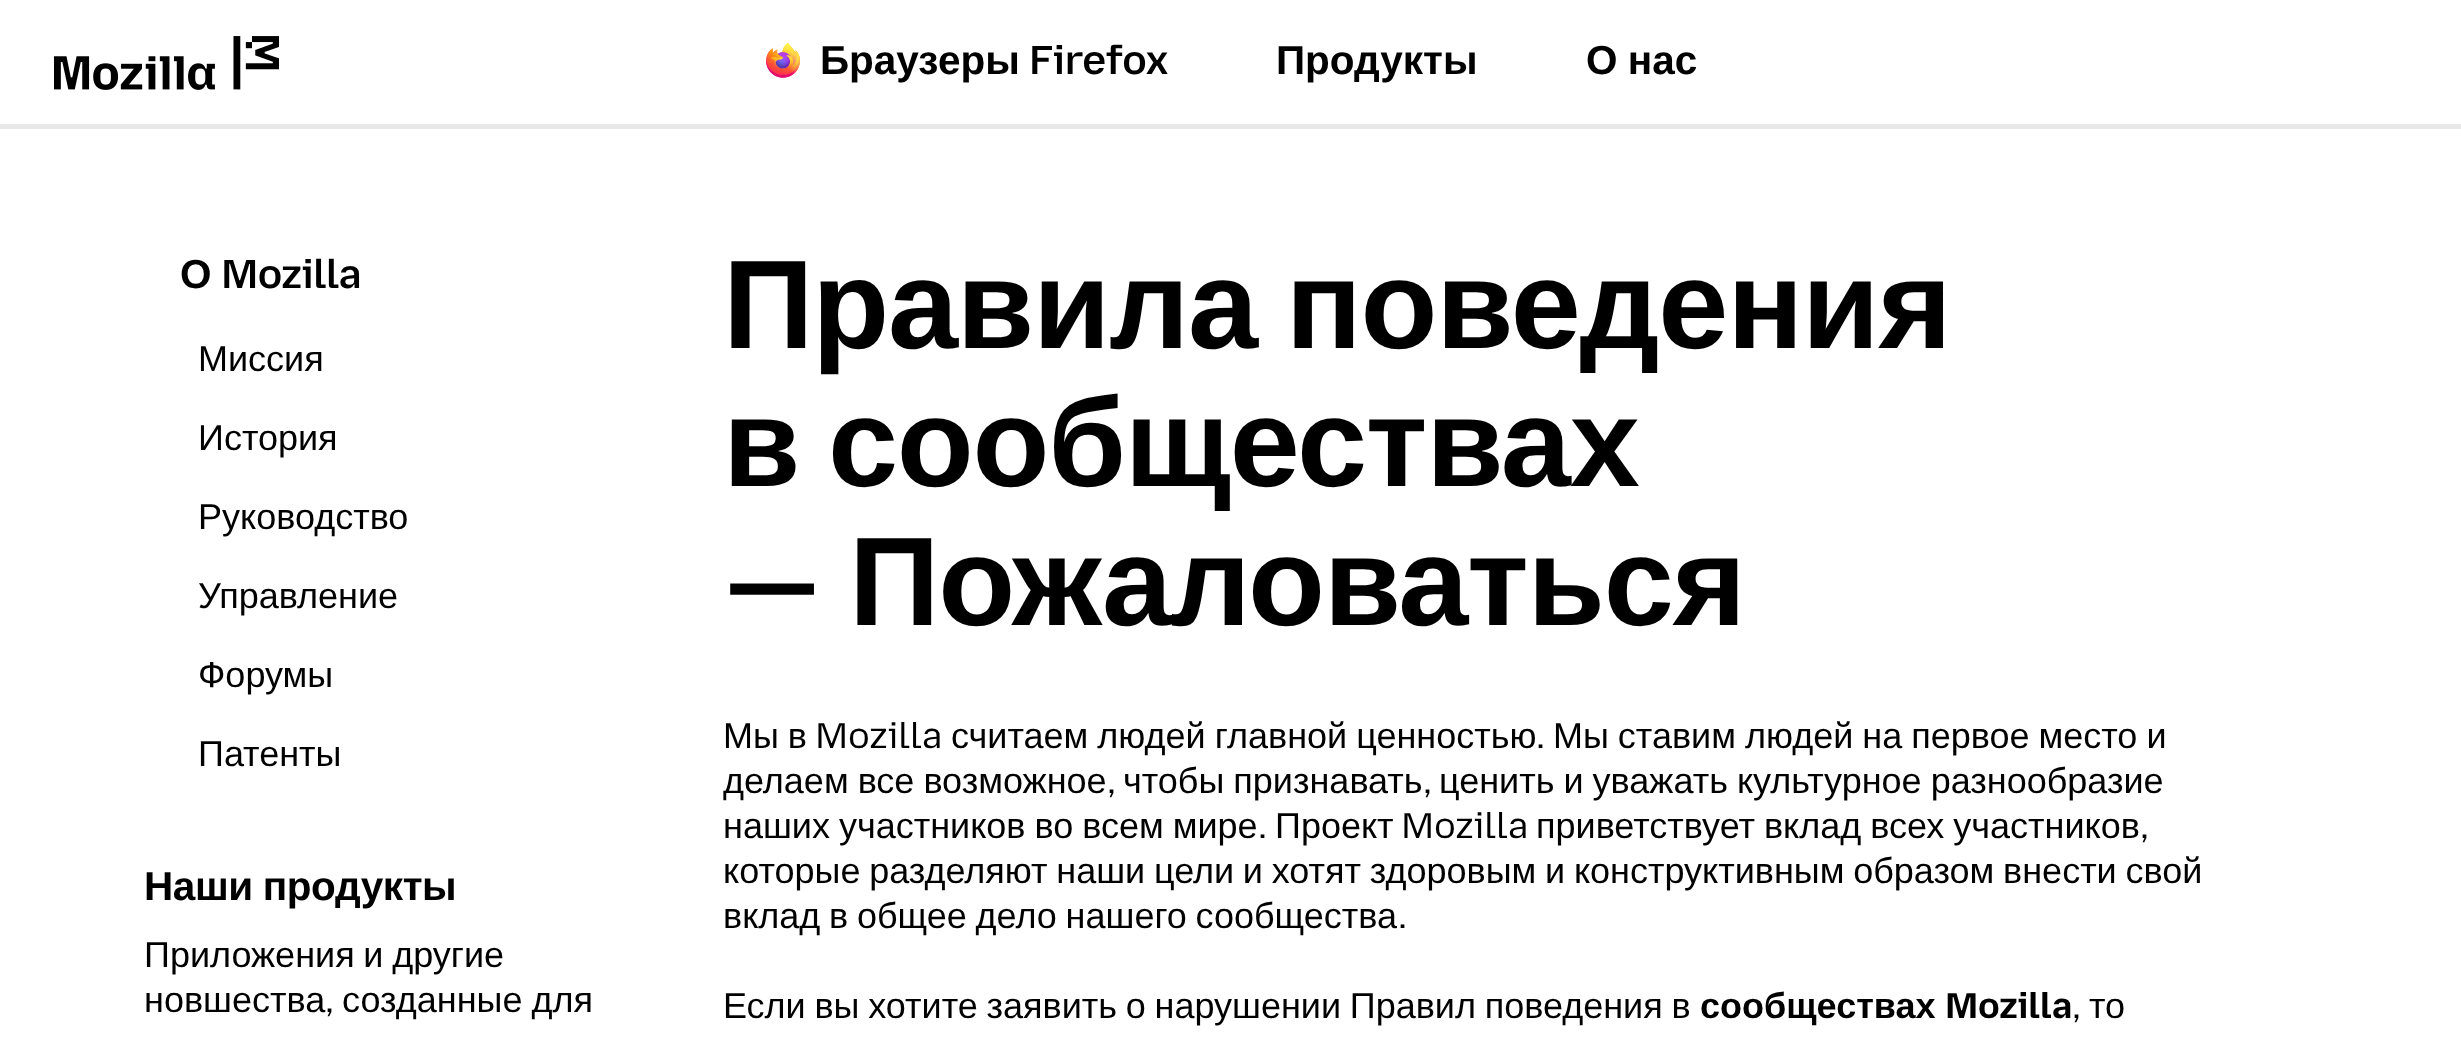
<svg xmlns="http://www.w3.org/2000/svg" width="2461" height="1048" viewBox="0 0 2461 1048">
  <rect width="100%" height="100%" fill="#ffffff"/>
  <rect x="0" y="124" width="2461" height="5" fill="#e8e8e8"/>
  <image x="54" y="36" width="225" height="54" href="img1.png"/>
  <image x="766" y="43" width="34" height="35" href="img2.png"/>
  <text x="820" y="74" font-family="Liberation Sans" font-size="40.5" font-weight="bold" fill="#000000">Браузеры</text>
  <text x="1029" y="74" font-family="Mozilla Text" font-size="40.5" font-weight="600" fill="#000000">Firefox</text>
  <text x="1276" y="74" font-family="Liberation Sans" font-size="40.5" font-weight="bold" fill="#000000">Продукты</text>
  <text x="1586" y="74" word-spacing="-1" font-family="Liberation Sans" font-size="40.5" font-weight="bold" fill="#000000">О нас</text>
  <text x="180" y="288" font-family="Liberation Sans" font-size="40.5" font-weight="bold" letter-spacing="-0.4" fill="#000000">О</text>
  <text x="221" y="288" font-family="Mozilla Text" font-size="40.5" font-weight="600" letter-spacing="-0.4" fill="#000000">Mozilla</text>
  <text x="198" y="371" font-family="Liberation Sans" font-size="36" fill="#000000">Миссия</text>
  <text x="198" y="450" font-family="Liberation Sans" font-size="36" fill="#000000">История</text>
  <text x="198" y="529" font-family="Liberation Sans" font-size="36" fill="#000000">Руководство</text>
  <text x="198" y="608" font-family="Liberation Sans" font-size="36" fill="#000000">Управление</text>
  <text x="198" y="687" font-family="Liberation Sans" font-size="36" fill="#000000">Форумы</text>
  <text x="198" y="766" font-family="Liberation Sans" font-size="36" fill="#000000">Патенты</text>
  <text x="144" y="900" word-spacing="-1" font-family="Liberation Sans" font-size="40.5" font-weight="bold" letter-spacing="-0.4" fill="#000000">Наши продукты</text>
  <text x="144" y="967" word-spacing="-1.25" font-family="Liberation Sans" font-size="36" fill="#000000">Приложения и другие</text>
  <text x="144" y="1012" font-family="Liberation Sans" font-size="36" fill="#000000">новшества</text>
  <text x="325" y="1012" font-family="Mozilla Text" font-size="36" fill="#000000">,</text>
  <text x="342" y="1012" word-spacing="-1" font-family="Liberation Sans" font-size="36" fill="#000000">созданные для</text>
  <text x="723" y="348" word-spacing="-5" font-family="Liberation Sans" font-size="126" font-weight="bold" letter-spacing="-1.25" fill="#000000">Правила поведения</text>
  <text x="723" y="486" word-spacing="-5" font-family="Liberation Sans" font-size="126" font-weight="bold" letter-spacing="-1.25" fill="#000000">в сообществах</text>
  <text x="723" y="625" font-family="Mozilla Headline" font-size="126" font-weight="600" letter-spacing="-1.25" fill="#000000">—</text>
  <text x="849" y="625" font-family="Liberation Sans" font-size="126" font-weight="bold" letter-spacing="-1.25" fill="#000000">Пожаловаться</text>
  <text x="723" y="748" word-spacing="-1" font-family="Liberation Sans" font-size="36" fill="#000000">Мы в</text>
  <text x="815" y="748" font-family="Mozilla Text" font-size="36" fill="#000000">Mozilla</text>
  <text x="951" y="748" word-spacing="-1" font-family="Liberation Sans" font-size="36" fill="#000000">считаем людей главной ценностью</text>
  <text x="1536" y="748" font-family="Mozilla Text" font-size="36" fill="#000000">.</text>
  <text x="1553" y="748" word-spacing="-1" font-family="Liberation Sans" font-size="36" fill="#000000">Мы ставим людей на первое место и</text>
  <text x="723" y="793" word-spacing="-1" font-family="Liberation Sans" font-size="36" fill="#000000">делаем все возможное</text>
  <text x="1107" y="793" font-family="Mozilla Text" font-size="36" fill="#000000">,</text>
  <text x="1123" y="793" word-spacing="-1" font-family="Liberation Sans" font-size="36" fill="#000000">чтобы признавать</text>
  <text x="1423" y="793" font-family="Mozilla Text" font-size="36" fill="#000000">,</text>
  <text x="1439" y="793" word-spacing="-1" font-family="Liberation Sans" font-size="36" fill="#000000">ценить и уважать культурное разнообразие</text>
  <text x="723" y="838" word-spacing="-1" font-family="Liberation Sans" font-size="36" fill="#000000">наших участников во всем мире</text>
  <text x="1258" y="838" font-family="Mozilla Text" font-size="36" fill="#000000">.</text>
  <text x="1275" y="838" font-family="Liberation Sans" font-size="36" fill="#000000">Проект</text>
  <text x="1401" y="838" font-family="Mozilla Text" font-size="36" fill="#000000">Mozilla</text>
  <text x="1536" y="838" word-spacing="-1" font-family="Liberation Sans" font-size="36" fill="#000000">приветствует вклад всех участников</text>
  <text x="2140" y="838" font-family="Mozilla Text" font-size="36" fill="#000000">,</text>
  <text x="723" y="883" word-spacing="-1.25" font-family="Liberation Sans" font-size="36" fill="#000000">которые разделяют наши цели и хотят здоровым и конструктивным образом внести свой</text>
  <text x="723" y="928" word-spacing="-1.25" font-family="Liberation Sans" font-size="36" fill="#000000">вклад в общее дело нашего сообщества</text>
  <text x="1398" y="928" font-family="Mozilla Text" font-size="36" fill="#000000">.</text>
  <text x="723" y="1018" word-spacing="-1.25" font-family="Liberation Sans" font-size="36" fill="#000000">Если вы хотите заявить о нарушении Правил поведения в</text>
  <text x="1700" y="1018" font-family="Liberation Sans" font-size="36" font-weight="bold" fill="#000000">сообществах</text>
  <text x="1945" y="1018" font-family="Mozilla Text" font-size="36" font-weight="bold" fill="#000000">Mozilla</text>
  <text x="2072" y="1018" font-family="Mozilla Text" font-size="36" fill="#000000">,</text>
  <text x="2089" y="1018" font-family="Liberation Sans" font-size="36" fill="#000000">то</text>
</svg>
